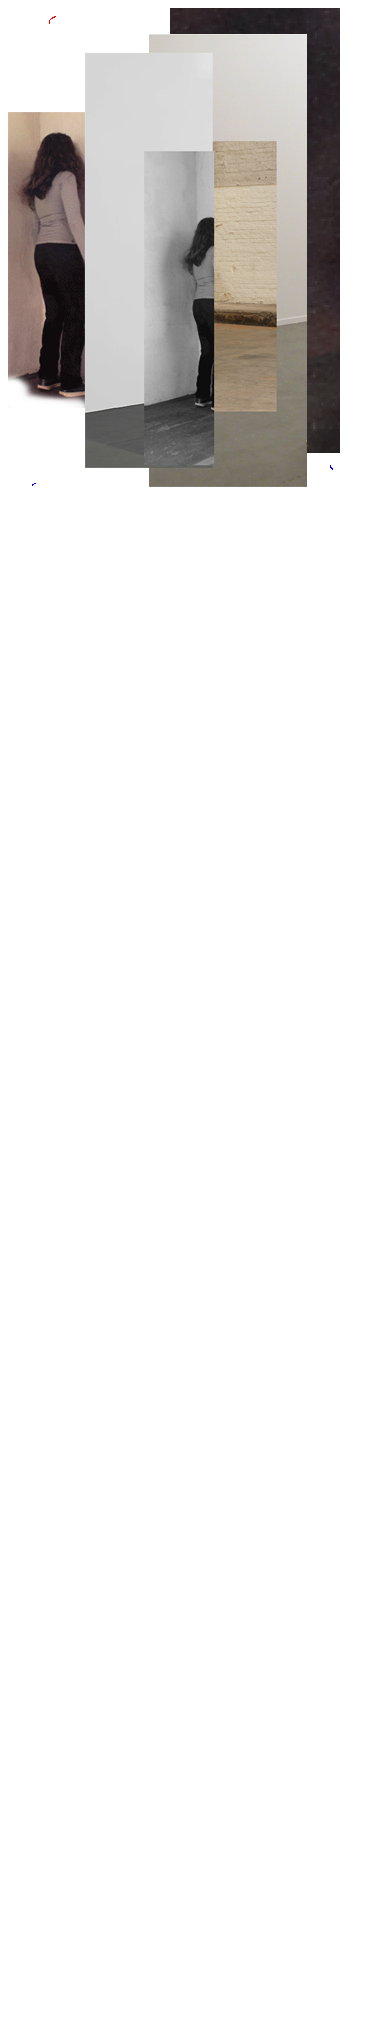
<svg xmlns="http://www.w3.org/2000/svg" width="374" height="2035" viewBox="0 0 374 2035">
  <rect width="100%" height="100%" fill="#ffffff"/>
  <image x="8" y="8" width="332" height="479" href="img1.png"/>
</svg>
